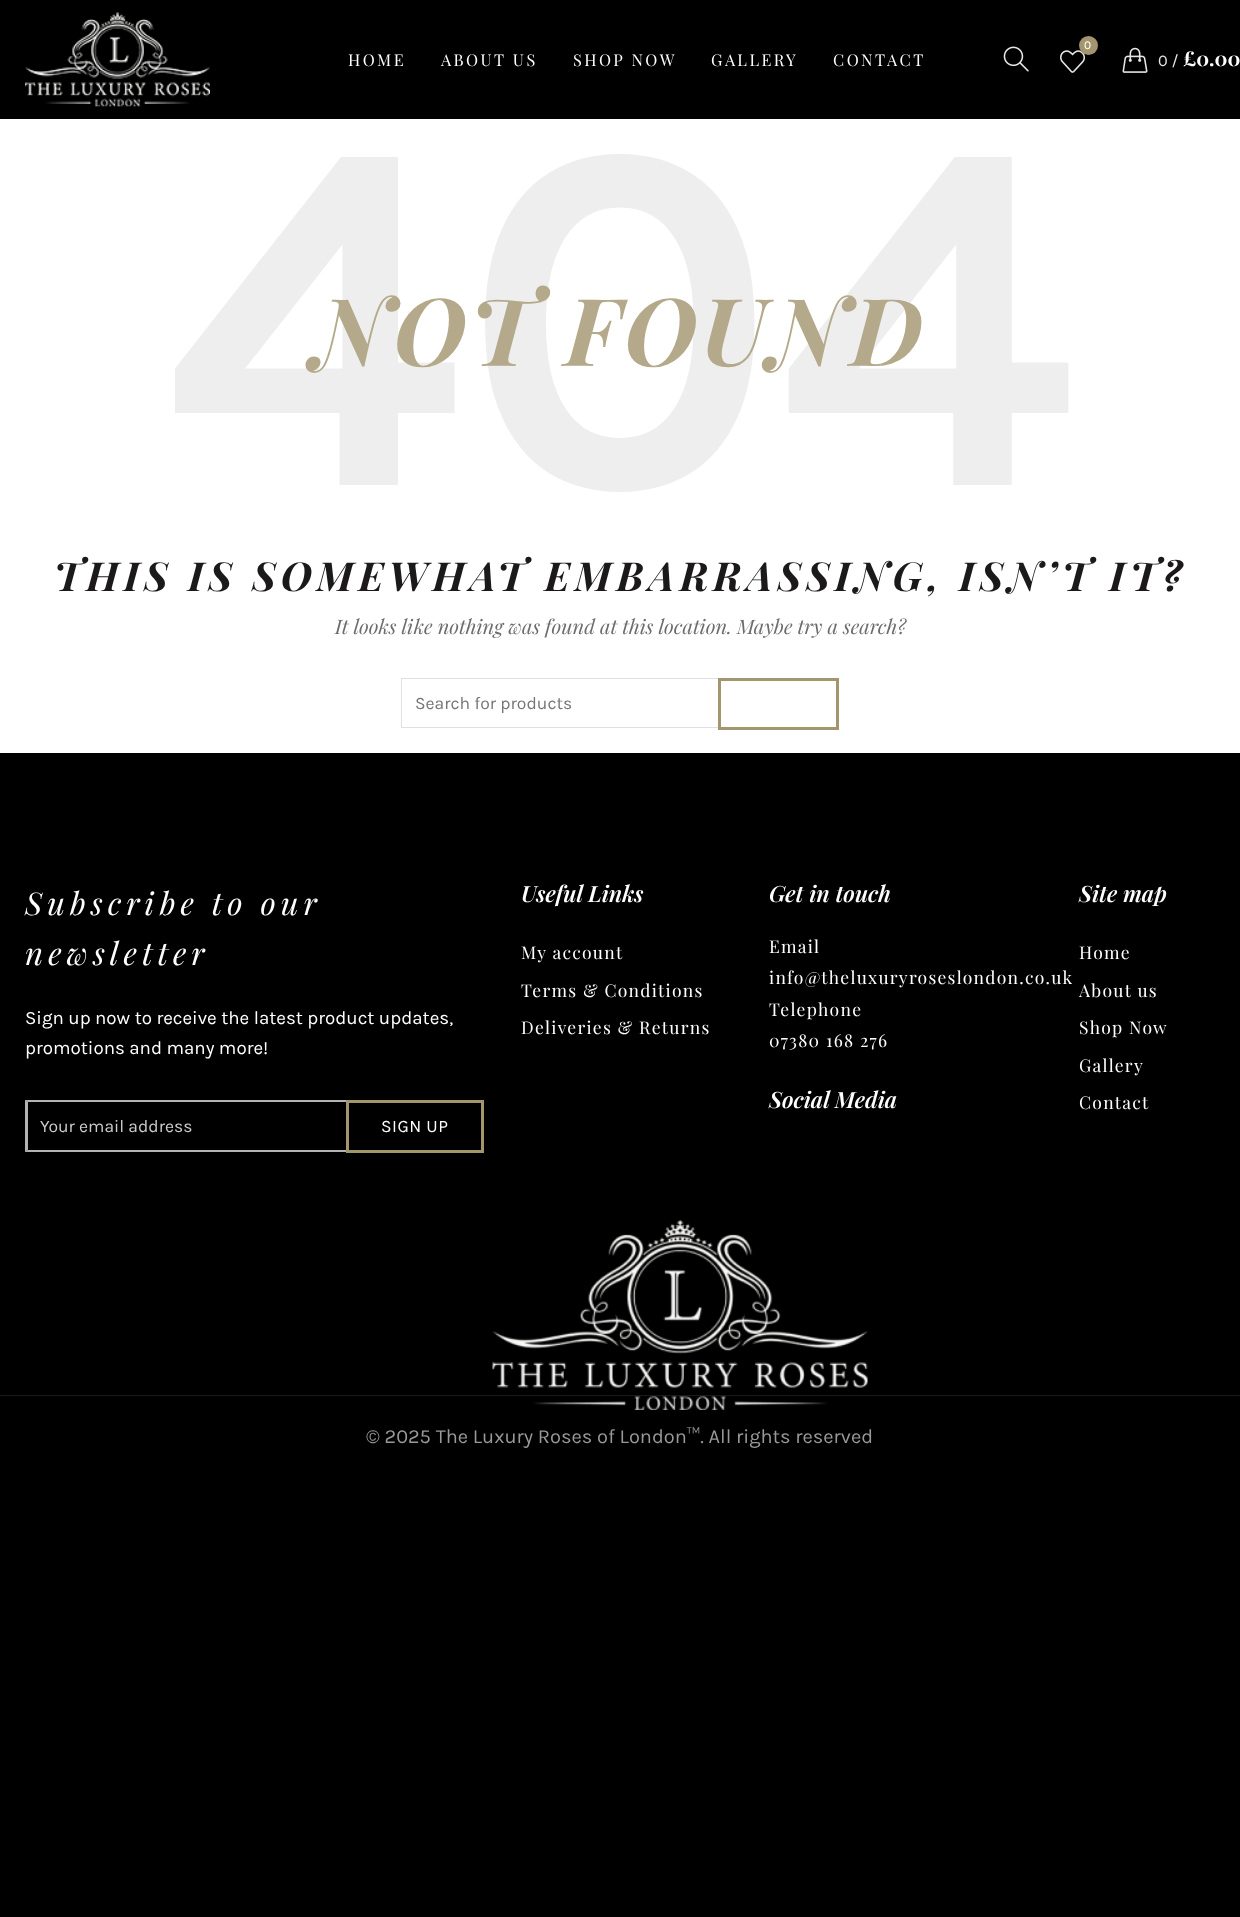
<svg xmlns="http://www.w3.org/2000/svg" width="1240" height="1917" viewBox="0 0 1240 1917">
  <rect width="100%" height="100%" fill="#000000"/>
  <image x="25" y="12" width="185" height="95" href="img1.png"/>
  <text x="348" y="66" font-family="Playfair Display" font-size="16.25" letter-spacing="2.5" fill="#ffffff">HOME</text>
  <text x="441" y="66" font-family="Playfair Display" font-size="16.25" letter-spacing="2.5" fill="#ffffff">ABOUT US</text>
  <text x="573" y="66" font-family="Playfair Display" font-size="16.25" letter-spacing="2.5" fill="#ffffff">SHOP NOW</text>
  <text x="711" y="66" font-family="Playfair Display" font-size="16.25" letter-spacing="2.5" fill="#ffffff">GALLERY</text>
  <text x="833" y="66" font-family="Playfair Display" font-size="16.25" letter-spacing="2.5" fill="#ffffff">CONTACT</text>
  <image x="1003" y="46" width="26" height="26" href="img2.png"/>
  <image x="1060" y="50" width="25" height="23" href="img3.png"/>
  <circle cx="1088.5" cy="45.5" r="9.5" fill="#a3956e"/>
  <text x="1084" y="49" font-family="Karla" font-size="12" fill="#ffffff">0</text>
  <image x="1122" y="47" width="26" height="26" href="img4.png"/>
  <text x="1158" y="66" font-family="Karla" font-size="16.25" fill="#e6e6e6">0 /</text>
  <text x="1183" y="66" font-family="Playfair Display" font-size="20" font-weight="bold" fill="#ffffff">£0.00</text>
  <rect x="0" y="119" width="1240" height="634" fill="#ffffff"/>
  <text x="164" y="485" font-family="Karla" font-size="500" font-weight="bold" fill="#eeeeee">404</text>
  <text x="313" y="366" font-family="Playfair Display" font-size="93.75" font-weight="bold" font-style="italic" letter-spacing="3.75" fill="#b4a98a">NOT FOUND</text>
  <text x="54" y="591" font-family="Playfair Display" font-size="40" font-weight="bold" font-style="italic" letter-spacing="5" fill="#1b1919">THIS IS SOMEWHAT EMBARRASSING, ISN’T IT?</text>
  <text x="335" y="634" font-family="Playfair Display" font-size="20" font-style="italic" fill="#6c6c6c">It looks like nothing was found at this location. Maybe try a search?</text>
  <rect x="401.5" y="678.5" width="437" height="49" fill="none" stroke="#e0e0e0"/>
  <text x="415" y="709" font-family="Karla" font-size="17.5" fill="#757575">Search for products</text>
  <rect x="719.5" y="679.5" width="118" height="49" fill="none" stroke="#a3956e" stroke-width="3"/>
  <text x="25" y="915" font-family="Playfair Display" font-size="31.25" font-style="italic" letter-spacing="5" fill="#ffffff">Subscribe to our</text>
  <text x="25" y="965" font-family="Playfair Display" font-size="31.25" font-style="italic" letter-spacing="5" fill="#ffffff">newsletter</text>
  <text x="25" y="1024" font-family="Karla" font-size="18.75" fill="#ffffff">Sign up now to receive the latest product updates,</text>
  <text x="25" y="1054" font-family="Karla" font-size="18.75" fill="#ffffff">promotions and many more!</text>
  <path d="M25 1100H484V1102H28Z" fill="#b3b3b3"/>
  <path d="M484 1152H25L28 1150H484Z" fill="#b3b3b3"/>
  <path d="M25 1152V1100L28 1102V1150Z" fill="#ffffff" fill-opacity="0.7"/>
  <text x="40" y="1132" font-family="Karla" font-size="17.5" fill="#cccccc">Your email address</text>
  <rect x="347.5" y="1101.5" width="135" height="50" fill="none" stroke="#a3956e" stroke-width="3"/>
  <text x="381" y="1132" font-family="Karla" font-size="17.5" letter-spacing="0.5" fill="#ffffff">SIGN UP</text>
  <rect x="0" y="1395" width="1240" height="1" fill="#1a1a1a"/>
  <image x="492" y="1220" width="376" height="190" href="img5.png"/>
  <text x="521" y="902" font-family="Playfair Display" font-size="22.5" font-weight="600" font-style="italic" fill="#ffffff">Useful Links</text>
  <text x="521" y="959" font-family="Playfair Display" font-size="17.5" letter-spacing="1.25" fill="#ffffff">My account</text>
  <text x="521" y="997" font-family="Playfair Display" font-size="17.5" letter-spacing="1.25" fill="#ffffff">Terms &amp; Conditions</text>
  <text x="521" y="1034" font-family="Playfair Display" font-size="17.5" letter-spacing="1.25" fill="#ffffff">Deliveries &amp; Returns</text>
  <text x="769" y="902" font-family="Playfair Display" font-size="22.5" font-weight="600" font-style="italic" fill="#ffffff">Get in touch</text>
  <text x="769" y="953" font-family="Playfair Display" font-size="17.5" letter-spacing="1.25" fill="#ffffff">Email</text>
  <text x="769" y="984" font-family="Playfair Display" font-size="17.5" letter-spacing="1.25" fill="#ffffff">info@theluxuryroseslondon.co.uk</text>
  <text x="769" y="1016" font-family="Playfair Display" font-size="17.5" letter-spacing="1.25" fill="#ffffff">Telephone</text>
  <text x="769" y="1047" font-family="Playfair Display" font-size="17.5" letter-spacing="1.25" fill="#ffffff">07380 168 276</text>
  <text x="769" y="1108" font-family="Playfair Display" font-size="22.5" font-weight="600" font-style="italic" fill="#ffffff">Social Media</text>
  <text x="1079" y="902" font-family="Playfair Display" font-size="22.5" font-weight="600" font-style="italic" fill="#ffffff">Site map</text>
  <text x="1079" y="959" font-family="Playfair Display" font-size="17.5" letter-spacing="1.25" fill="#ffffff">Home</text>
  <text x="1079" y="997" font-family="Playfair Display" font-size="17.5" letter-spacing="1.25" fill="#ffffff">About us</text>
  <text x="1079" y="1034" font-family="Playfair Display" font-size="17.5" letter-spacing="1.25" fill="#ffffff">Shop Now</text>
  <text x="1079" y="1072" font-family="Playfair Display" font-size="17.5" letter-spacing="1.25" fill="#ffffff">Gallery</text>
  <text x="1079" y="1109" font-family="Playfair Display" font-size="17.5" letter-spacing="1.25" fill="#ffffff">Contact</text>
  <text x="366" y="1443" font-family="Karla" font-size="20" fill="#999999">© 2025 The Luxury Roses of London™. All rights reserved</text>
</svg>
